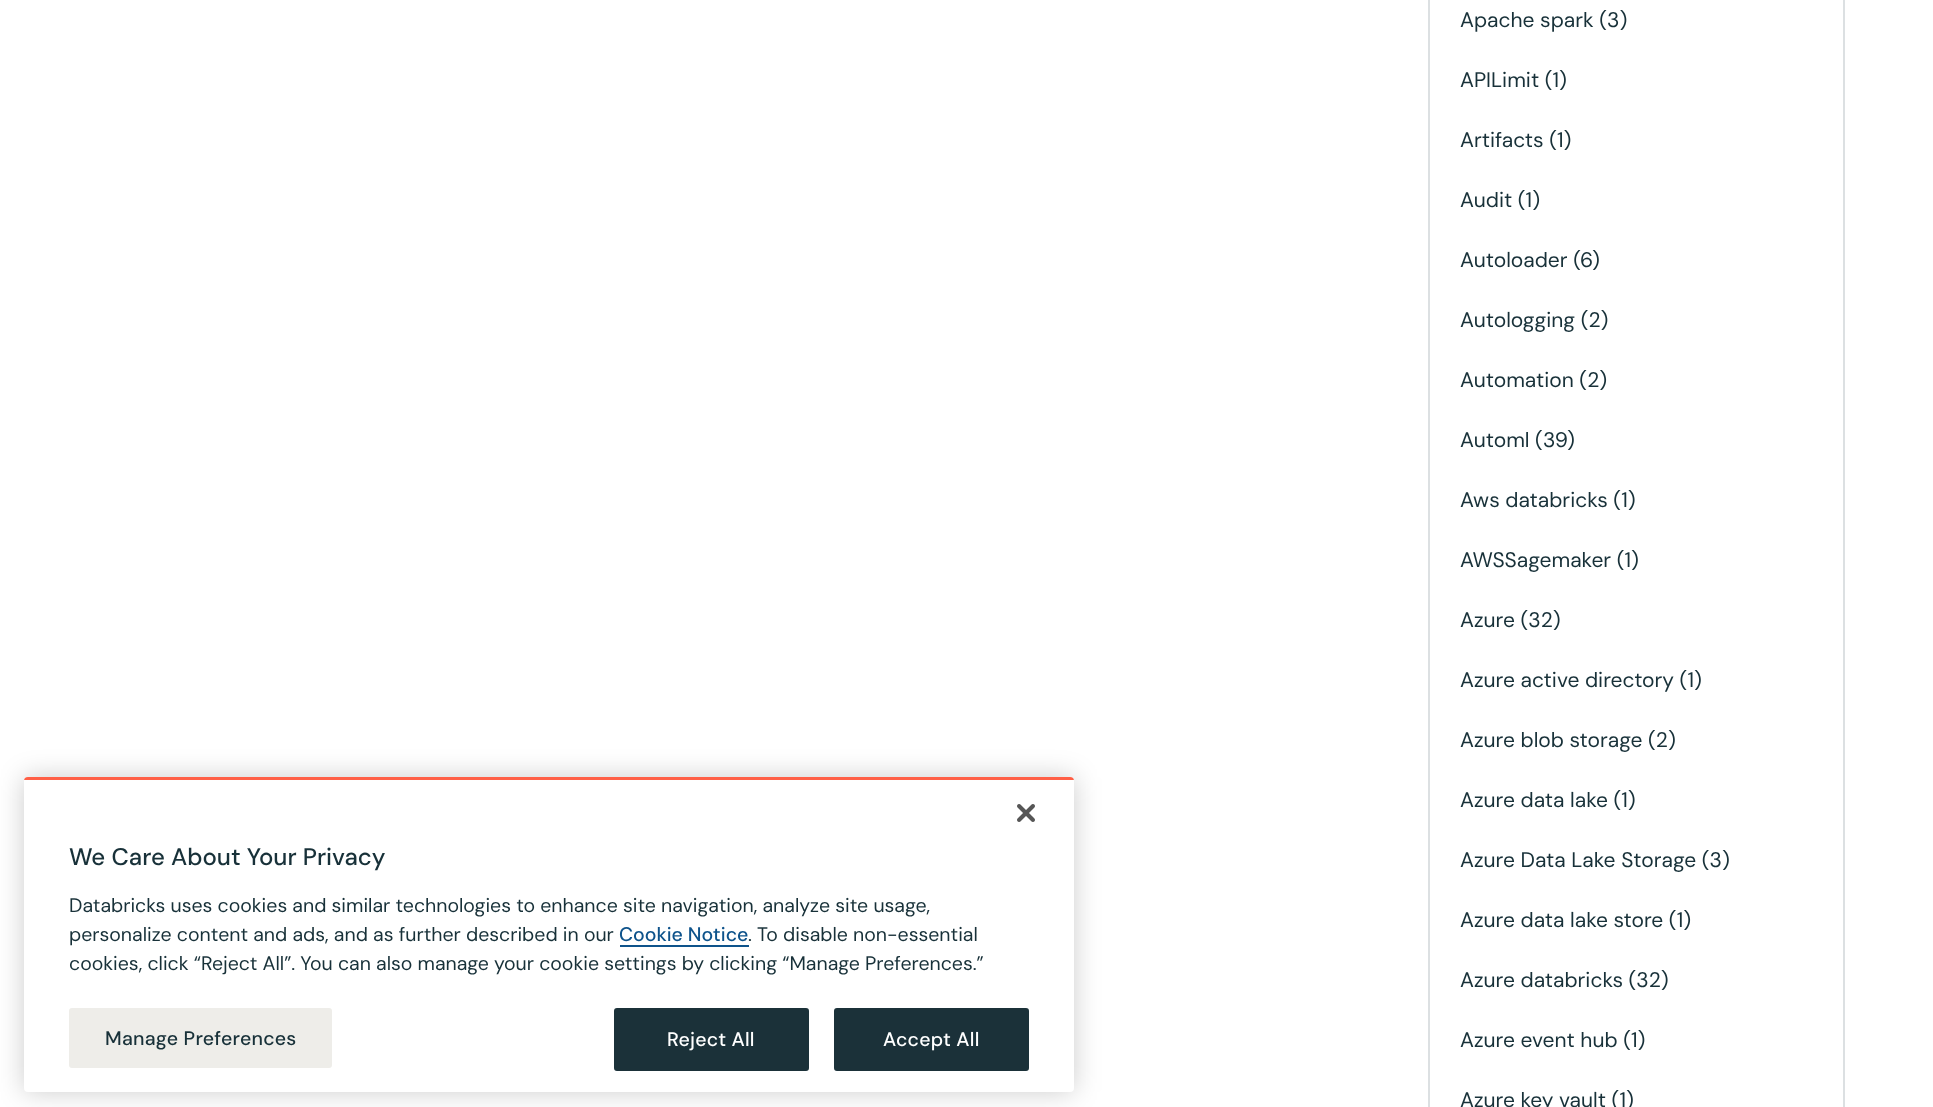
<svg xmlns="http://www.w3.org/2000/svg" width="1933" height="1107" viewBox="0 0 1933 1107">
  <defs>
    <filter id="blur1" x="-50%" y="-200%" width="200%" height="500%"><feGaussianBlur stdDeviation="13.5"/></filter>
    <clipPath id="clip1"><rect x="24" y="777" width="1050" height="315" rx="4"/></clipPath>
  </defs>
  <rect width="100%" height="100%" fill="#ffffff"/>
  <rect x="24" y="777" width="1050" height="315" rx="4" fill="#000000" fill-opacity="0.2" filter="url(#blur1)"/>
  <rect x="24" y="777" width="1050" height="315" rx="4" fill="#ffffff"/>
  <g clip-path="url(#clip1)">
    <rect x="24" y="777" width="1050" height="3" fill="#ff5f46"/>
  </g>
  <image x="1017" y="804" width="18" height="18" href="img1.png"/>
  <text x="69" y="865" font-family="DM Sans" font-size="24" font-weight="500" fill="#183139">We Care About Your Privacy</text>
  <text x="69" y="912" font-family="DM Sans" font-size="19.5" fill="#183139">Databricks uses cookies and similar technologies to enhance site navigation, analyze site usage,</text>
  <text x="69" y="941" font-family="DM Sans" font-size="19.5" fill="#183139">personalize content and ads, and as further described in our</text>
  <text x="619" y="941" font-family="DM Sans" font-size="19.5" font-weight="500" fill="#0e538b">Cookie Notice</text>
  <rect x="620" y="945" width="129" height="2" fill="#0e538b"/>
  <text x="748" y="941" font-family="DM Sans" font-size="19.5" fill="#183139">. To disable non-essential</text>
  <text x="69" y="970" font-family="DM Sans" font-size="19.5" fill="#183139">cookies, click “Reject All”. You can also manage your cookie settings by clicking “Manage Preferences.”</text>
  <rect x="69" y="1008" width="263" height="60" rx="3" fill="#eeede9"/>
  <text x="105" y="1045" font-family="DM Sans" font-size="19.5" font-weight="500" letter-spacing="0.25" fill="#183139">Manage Preferences</text>
  <rect x="615" y="1009" width="193" height="61" rx="2" fill="#1b3139" stroke="#1b3139" stroke-width="2"/>
  <text x="667" y="1046" font-family="DM Sans" font-size="19.5" font-weight="500" letter-spacing="0.25" fill="#ffffff">Reject All</text>
  <rect x="835" y="1009" width="193" height="61" rx="2" fill="#1b3139" stroke="#1b3139" stroke-width="2"/>
  <text x="883" y="1046" font-family="DM Sans" font-size="19.5" font-weight="500" letter-spacing="0.25" fill="#ffffff">Accept All</text>
  <rect x="1429" y="-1" width="415" height="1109" fill="none" stroke="#dce0e2" stroke-width="2"/>
  <text x="1460" y="27" font-family="DM Sans" font-size="21" fill="#183139">Apache spark (3)</text>
  <text x="1460" y="87" font-family="DM Sans" font-size="21" fill="#183139">APILimit (1)</text>
  <text x="1460" y="147" font-family="DM Sans" font-size="21" fill="#183139">Artifacts (1)</text>
  <text x="1460" y="207" font-family="DM Sans" font-size="21" fill="#183139">Audit (1)</text>
  <text x="1460" y="267" font-family="DM Sans" font-size="21" fill="#183139">Autoloader (</text>
  <text x="1580" y="267" font-family="DM Sans" font-size="21" fill="#183139">6</text>
  <text x="1592" y="267" font-family="DM Sans" font-size="21" fill="#183139">)</text>
  <text x="1460" y="327" font-family="DM Sans" font-size="21" fill="#183139">Autologging (2)</text>
  <text x="1460" y="387" font-family="DM Sans" font-size="21" fill="#183139">Automation (2)</text>
  <text x="1460" y="447" font-family="DM Sans" font-size="21" fill="#183139">Automl (39</text>
  <text x="1567" y="447" font-family="DM Sans" font-size="21" fill="#183139">)</text>
  <text x="1460" y="507" font-family="DM Sans" font-size="21" fill="#183139">Aws databricks (1)</text>
  <text x="1460" y="567" font-family="DM Sans" font-size="21" fill="#183139">AWSSagemaker (1)</text>
  <text x="1460" y="627" font-family="DM Sans" font-size="21" fill="#183139">Azure (32)</text>
  <text x="1460" y="687" font-family="DM Sans" font-size="21" fill="#183139">Azure active directory (1)</text>
  <text x="1460" y="747" font-family="DM Sans" font-size="21" fill="#183139">Azure blob storage (2)</text>
  <text x="1460" y="807" font-family="DM Sans" font-size="21" fill="#183139">Azure data lake (1)</text>
  <text x="1460" y="867" font-family="DM Sans" font-size="21" fill="#183139">Azure Data Lake Storage (3)</text>
  <text x="1460" y="927" font-family="DM Sans" font-size="21" fill="#183139">Azure data lake store (1)</text>
  <text x="1460" y="987" font-family="DM Sans" font-size="21" fill="#183139">Azure databricks (32)</text>
  <text x="1460" y="1047" font-family="DM Sans" font-size="21" fill="#183139">Azure event hub (1)</text>
  <text x="1460" y="1107" font-family="DM Sans" font-size="21" fill="#183139">Azure key vault (1)</text>
</svg>
